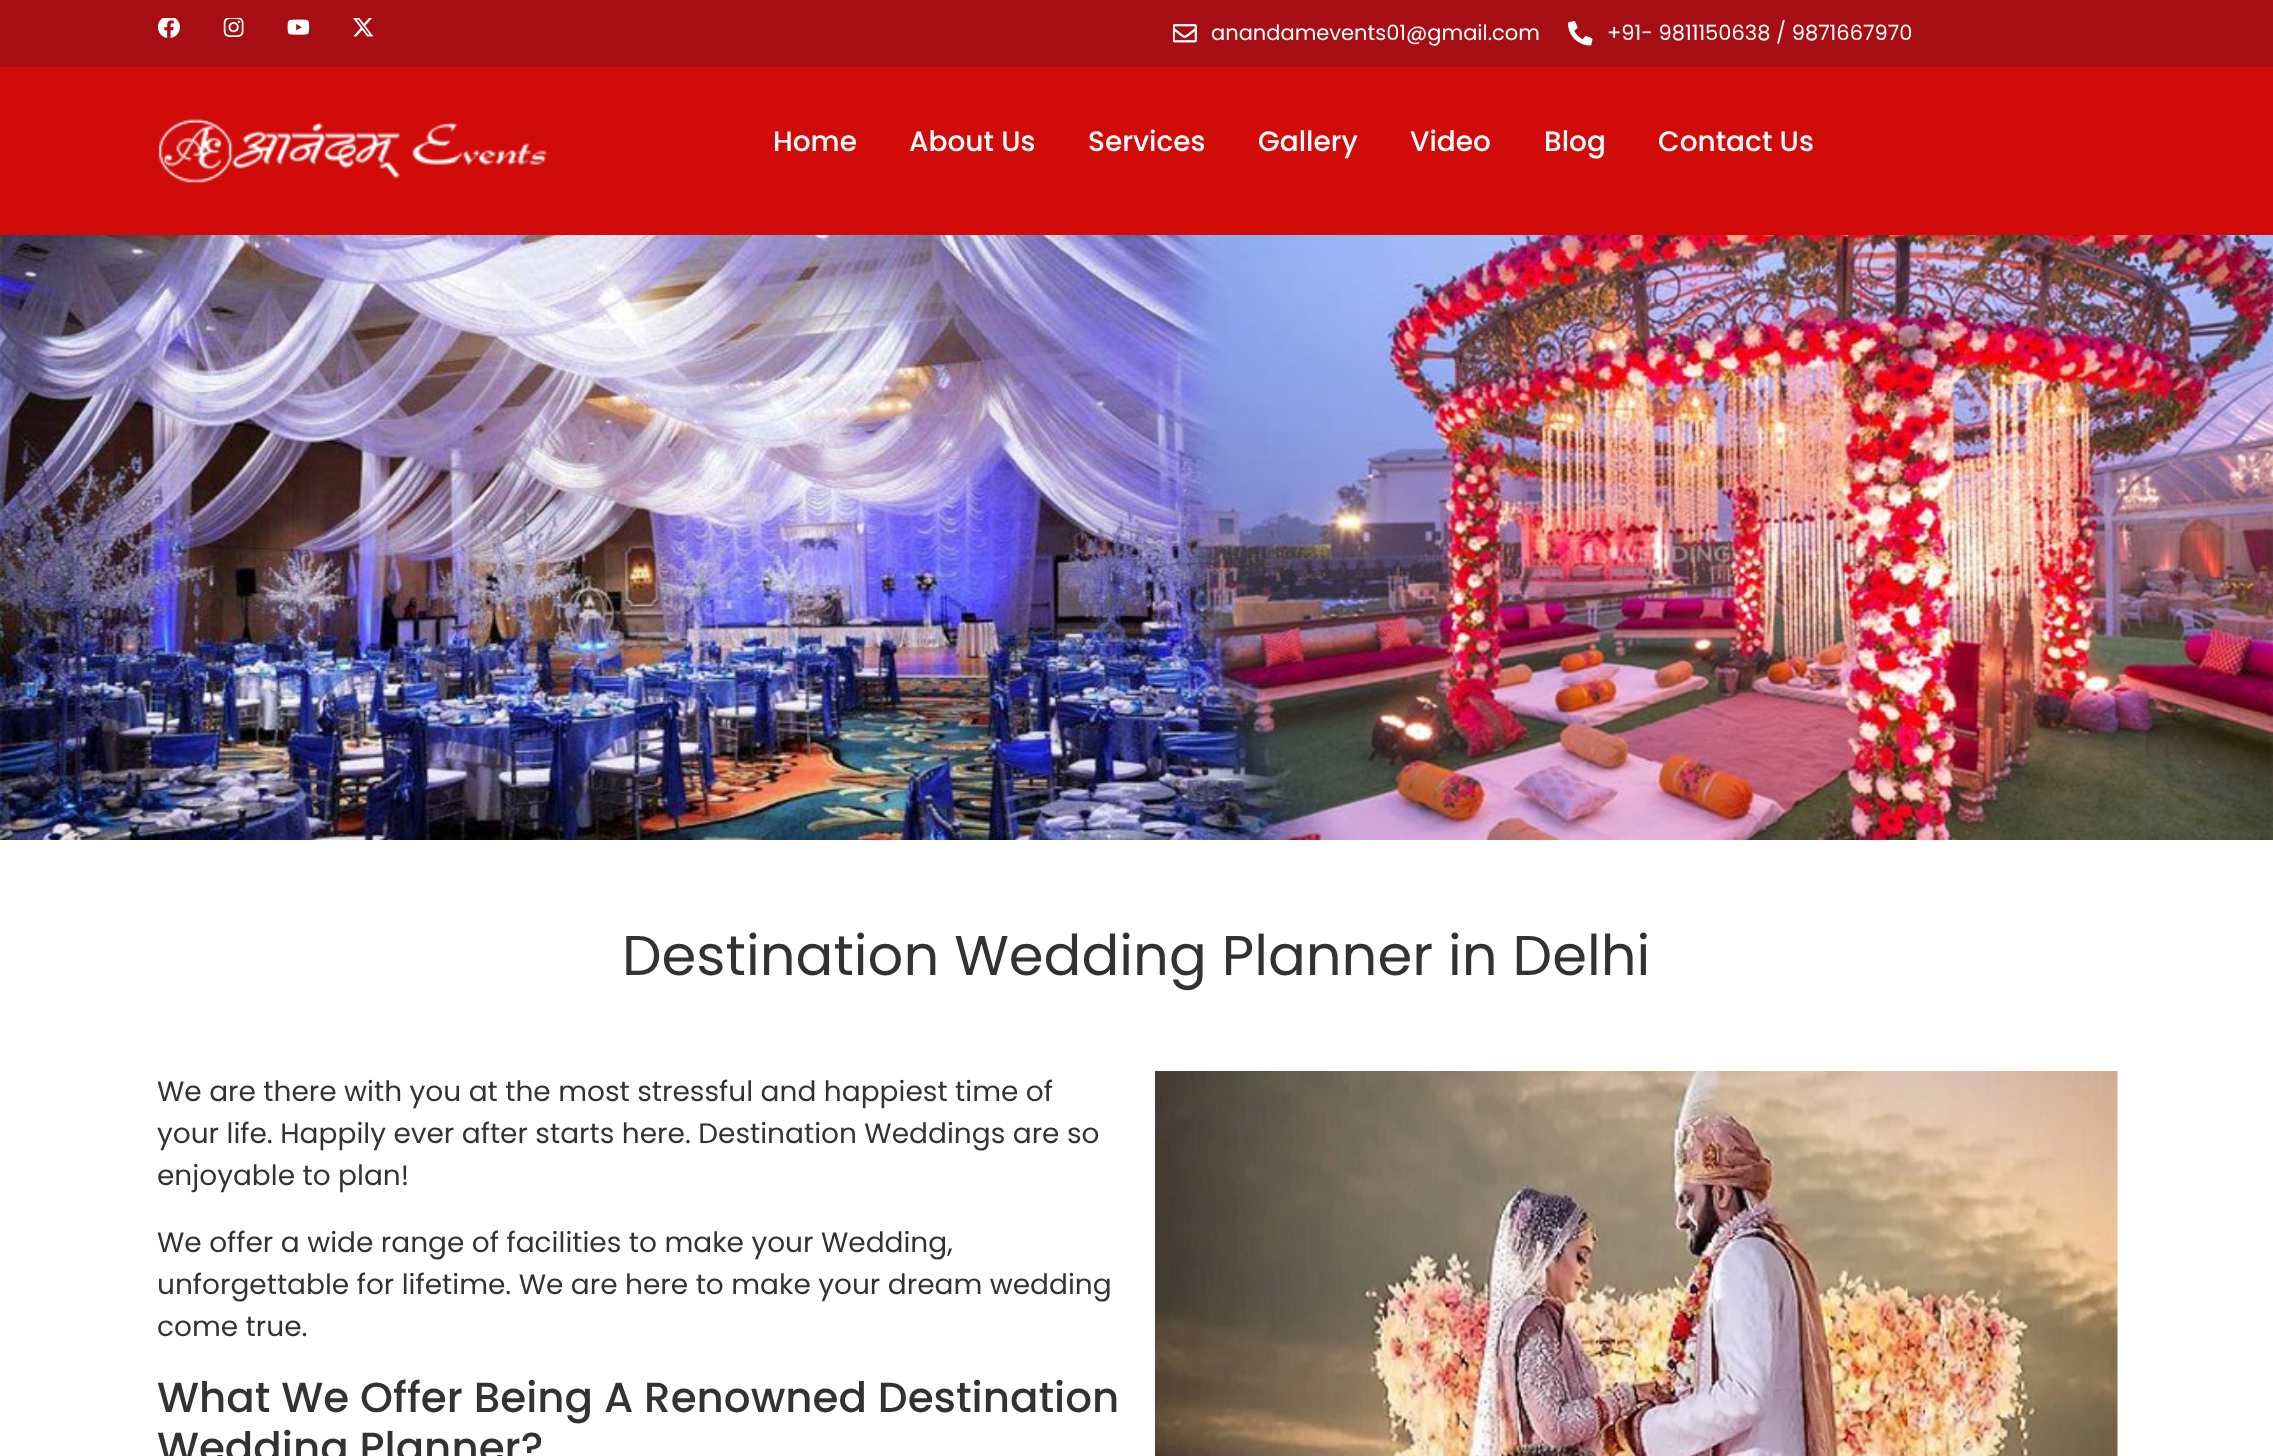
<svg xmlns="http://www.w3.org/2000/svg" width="2273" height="1456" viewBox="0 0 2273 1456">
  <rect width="100%" height="100%" fill="#ffffff"/>
  <rect x="0" y="0" width="2273" height="67" fill="#a70e13"/>
  <image x="158" y="18" width="22" height="20" href="img1.png"/>
  <image x="223" y="18" width="21" height="19" href="img2.png"/>
  <image x="287" y="19" width="23" height="16" href="img3.png"/>
  <image x="353" y="18" width="21" height="19" href="img4.png"/>
  <image x="1173" y="24" width="24" height="19" href="img5.png"/>
  <text x="1211" y="40" font-family="Poppins" font-size="21" fill="#ffffff">anandamevents01@gmail.com</text>
  <image x="1568" y="21" width="25" height="25" href="img6.png"/>
  <text x="1607" y="40" font-family="Poppins" font-size="21" fill="#ffffff">+91- 9811150638 / 9871667970</text>
  <rect x="0" y="67" width="2273" height="168" fill="#d10a0a"/>
  <image x="157" y="118" width="390" height="65" href="img7.png"/>
  <text x="773" y="151" font-family="Poppins" font-size="28" font-weight="500" fill="#ffffff">Home</text>
  <text x="909" y="151" font-family="Poppins" font-size="28" font-weight="500" fill="#ffffff">About Us</text>
  <text x="1088" y="151" font-family="Poppins" font-size="28" font-weight="500" fill="#ffffff">Services</text>
  <text x="1258" y="151" font-family="Poppins" font-size="28" font-weight="500" fill="#ffffff">Gallery</text>
  <text x="1410" y="151" font-family="Poppins" font-size="28" font-weight="500" fill="#ffffff">Video</text>
  <text x="1544" y="151" font-family="Poppins" font-size="28" font-weight="500" fill="#ffffff">Blog</text>
  <text x="1658" y="151" font-family="Poppins" font-size="28" font-weight="500" fill="#ffffff">Contact Us</text>
  <image x="0" y="235" width="2273" height="605" href="img8.png"/>
  <text x="622" y="975" font-family="Poppins" font-size="56" fill="#313333">Destination Wedding Planner in Delhi</text>
  <text x="157" y="1101" font-family="Poppins" font-size="28" fill="#313333">We are there with you at the most stressful and happiest time of</text>
  <text x="157" y="1143" font-family="Poppins" font-size="28" fill="#313333">your life. Happily ever after starts here. Destination Weddings are so</text>
  <text x="157" y="1185" font-family="Poppins" font-size="28" fill="#313333">enjoyable to plan!</text>
  <text x="157" y="1252" font-family="Poppins" font-size="28" fill="#313333">We offer a wide range of facilities to make your Wedding,</text>
  <text x="157" y="1294" font-family="Poppins" font-size="28" fill="#313333">unforgettable for lifetime. We are here to make your dream wedding</text>
  <text x="157" y="1336" font-family="Poppins" font-size="28" fill="#313333">come true.</text>
  <text x="157" y="1412" font-family="Poppins" font-size="42" font-weight="500" fill="#313333">What We Offer Being A Renowned Destination</text>
  <text x="157" y="1462" font-family="Poppins" font-size="42" font-weight="500" fill="#313333">Wedding Planner?</text>
  <image x="1155" y="1071" width="963" height="385" href="img9.png"/>
</svg>
